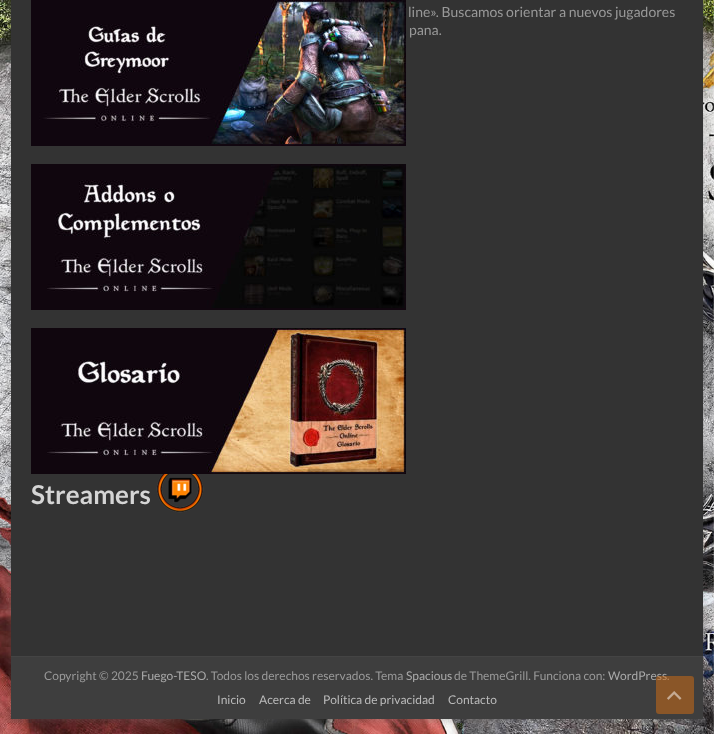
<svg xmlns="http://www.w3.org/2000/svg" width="714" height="734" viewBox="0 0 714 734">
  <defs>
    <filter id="blur1" x="-50%" y="-200%" width="200%" height="500%"><feGaussianBlur stdDeviation="3"/></filter>
  </defs>
  <rect width="100%" height="100%" fill="#ffffff"/>
  <image x="0" y="0" width="714" height="734" href="img1.png"/>
  <rect x="11" y="-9" width="692" height="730" fill="#646464" fill-opacity="0.3" filter="url(#blur1)"/>
  <rect x="11" y="0" width="692" height="656" fill="#333333"/>
  <image x="31" y="0" width="375" height="146" href="img2.png"/>
  <image x="31" y="164" width="375" height="146" href="img3.png"/>
  <image x="31" y="328" width="375" height="146" href="img4.png"/>
  <text x="408" y="17" font-family="Lato" font-size="14" fill="#999999">line». Buscamos orientar a nuevos jugadores</text>
  <text x="409" y="35" font-family="Lato" font-size="14" fill="#999999">pana.</text>
  <text x="31" y="504" font-family="Lato" font-size="26" font-weight="bold" fill="#d5d5d5">Streamers</text>
  <image x="156" y="474" width="48" height="39" href="img5.png"/>
  <rect x="11" y="657" width="692" height="62" fill="#3e3e3e"/>
  <rect x="11" y="656" width="692" height="1" fill="#444444"/>
  <text x="44" y="680" font-family="Lato" font-size="12" fill="#999999">Copyright © 2025</text>
  <text x="141" y="680" font-family="Lato" font-size="12" fill="#aaaaaa">Fuego-TESO</text>
  <text x="206" y="680" font-family="Lato" font-size="12" fill="#999999">. Todos los derechos reservados. Tema</text>
  <text x="406" y="680" font-family="Lato" font-size="12" fill="#aaaaaa">Spacious</text>
  <text x="454" y="680" font-family="Lato" font-size="12" fill="#999999">de ThemeGrill. Funciona con:</text>
  <text x="608" y="680" font-family="Lato" font-size="12" fill="#aaaaaa">WordPress</text>
  <text x="667" y="680" font-family="Lato" font-size="12" fill="#999999">.</text>
  <text x="217" y="704" font-family="Lato" font-size="12" fill="#bbbbbb">Inicio</text>
  <text x="259" y="704" font-family="Lato" font-size="12" fill="#bbbbbb">Acerca de</text>
  <text x="323" y="704" font-family="Lato" font-size="12" fill="#bbbbbb">Política de privacidad</text>
  <text x="448" y="704" font-family="Lato" font-size="12" fill="#bbbbbb">Contacto</text>
  <rect x="656" y="676" width="38" height="38" rx="3" fill="#d66d11" fill-opacity="0.5"/>
  <image x="667" y="691" width="15" height="9" href="img6.png"/>
</svg>
